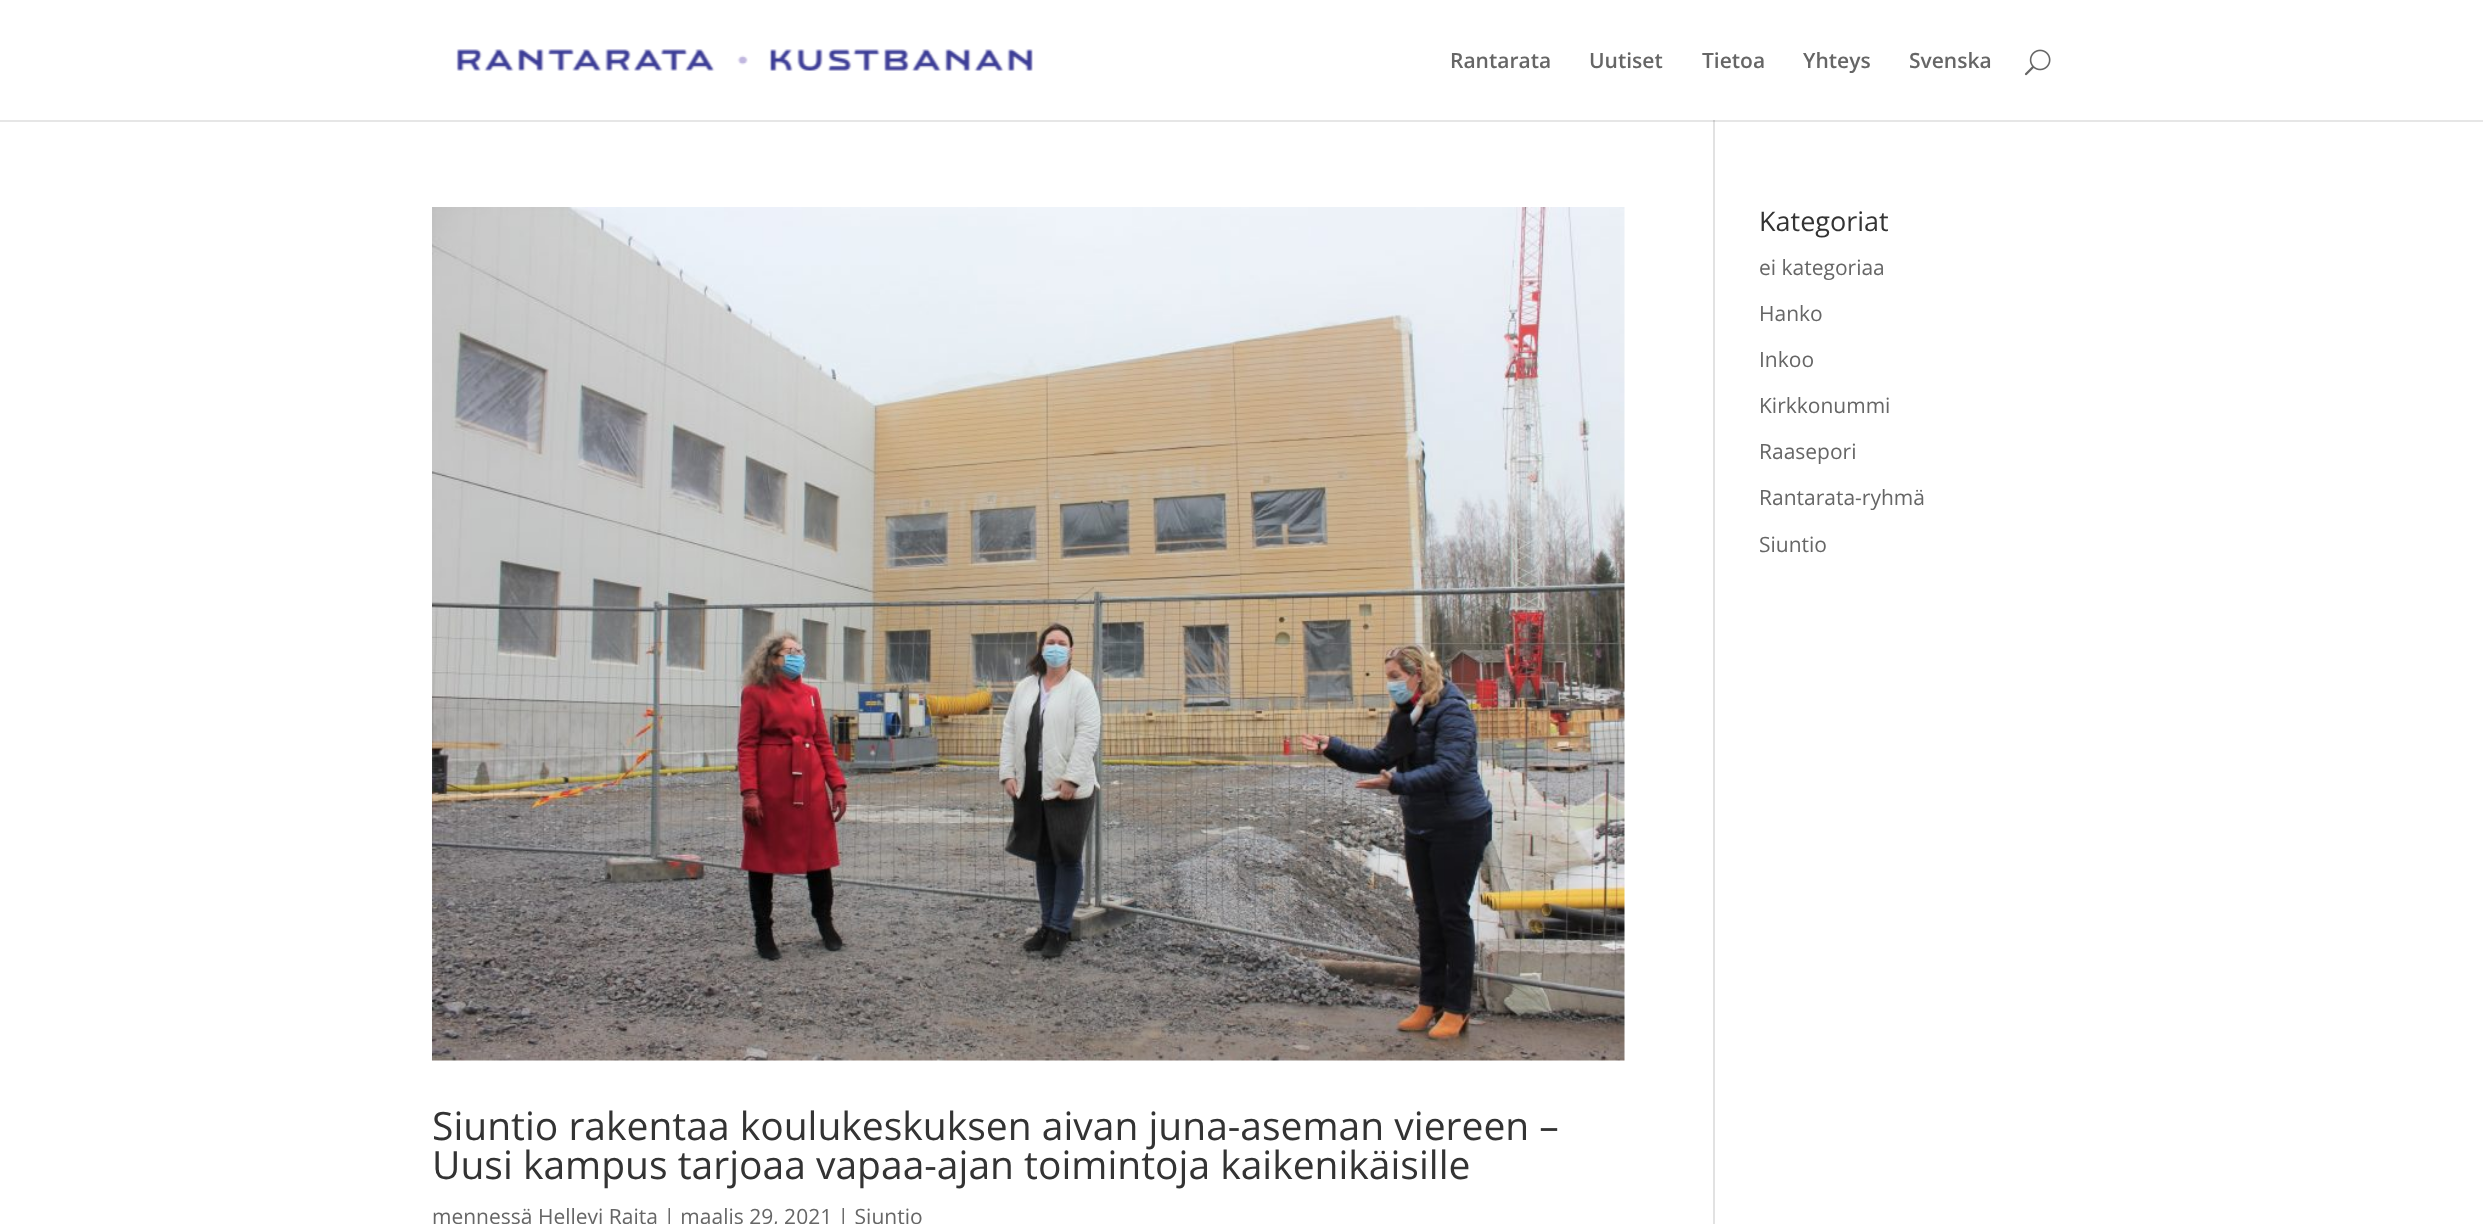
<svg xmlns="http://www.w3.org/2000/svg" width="2483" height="1224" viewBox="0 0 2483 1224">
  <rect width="100%" height="100%" fill="#ffffff"/>
  <rect x="0" y="120" width="2483" height="2" fill="#e6e6e6"/>
  <image x="456" y="49" width="577" height="22" href="img1.png"/>
  <text x="1450" y="68" font-family="Open Sans" font-size="21" font-weight="600" fill="#666666">Rantarata</text>
  <text x="1589" y="68" font-family="Open Sans" font-size="21" font-weight="600" fill="#666666">Uutiset</text>
  <text x="1702" y="68" font-family="Open Sans" font-size="21" font-weight="600" fill="#666666">Tietoa</text>
  <text x="1803" y="68" font-family="Open Sans" font-size="21" font-weight="600" fill="#666666">Yhteys</text>
  <text x="1909" y="68" font-family="Open Sans" font-size="21" font-weight="600" fill="#666666">Svenska</text>
  <image x="2024" y="49" width="27" height="27" href="img2.png"/>
  <rect x="1713" y="120" width="2" height="1104" fill="#e2e2e2"/>
  <rect x="1713" y="120" width="2" height="2" fill="#cbcbcb"/>
  <text x="1759" y="231" font-family="Open Sans" font-size="27" fill="#333333">Kategoriat</text>
  <text x="1759" y="275" font-family="Open Sans" font-size="21" fill="#666666">ei kategoriaa</text>
  <text x="1759" y="321" font-family="Open Sans" font-size="21" fill="#666666">Hanko</text>
  <text x="1759" y="367" font-family="Open Sans" font-size="21" fill="#666666">Inkoo</text>
  <text x="1759" y="413" font-family="Open Sans" font-size="21" fill="#666666">Kirkkonummi</text>
  <text x="1759" y="459" font-family="Open Sans" font-size="21" fill="#666666">Raasepori</text>
  <text x="1759" y="505" font-family="Open Sans" font-size="21" fill="#666666">Rantarata-ryhmä</text>
  <text x="1759" y="552" font-family="Open Sans" font-size="21" fill="#666666">Siuntio</text>
  <image x="432" y="207" width="1193" height="854" href="img3.png"/>
  <text x="432" y="1140" font-family="Open Sans" font-size="39" fill="#333333">Siuntio rakentaa koulukeskuksen aivan juna-aseman viereen –</text>
  <text x="432" y="1179" font-family="Open Sans" font-size="39" fill="#333333">Uusi kampus tarjoaa vapaa-ajan toimintoja kaikenikäisille</text>
  <text x="432" y="1224" font-family="Open Sans" font-size="21" fill="#666666">mennessä Hellevi Raita | maalis 29, 2021 | Siuntio</text>
</svg>
